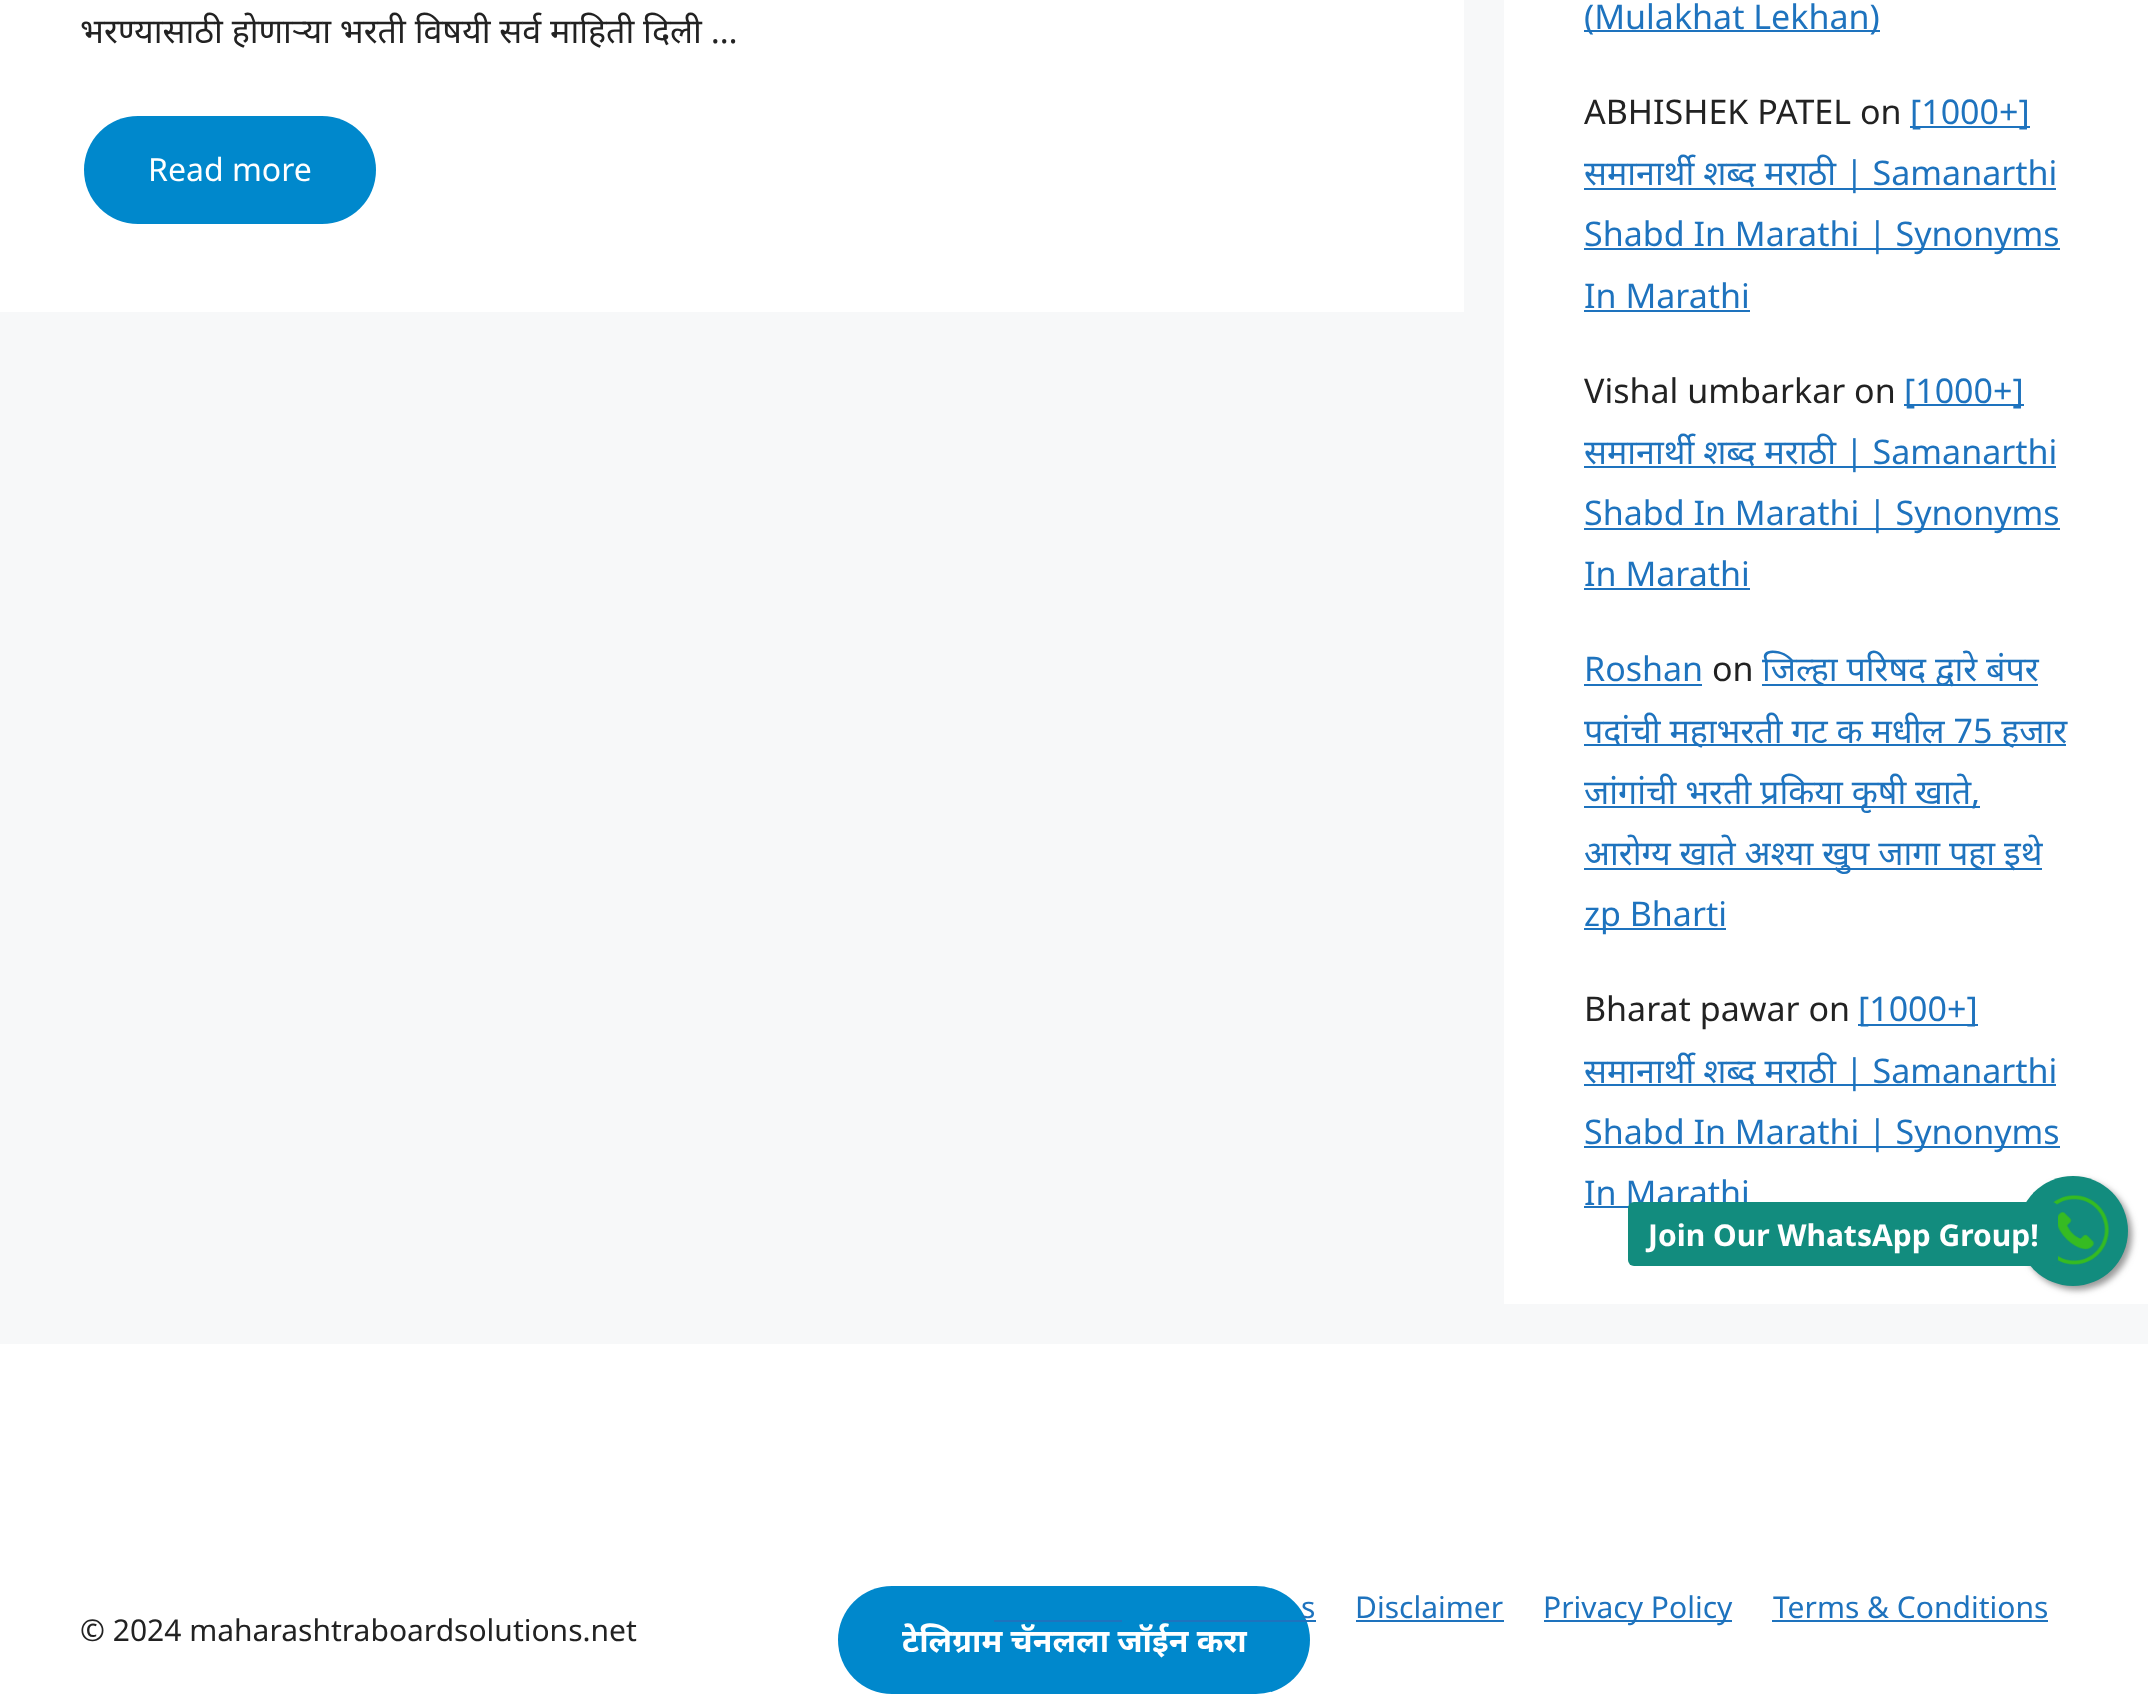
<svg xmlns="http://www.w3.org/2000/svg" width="2148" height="1694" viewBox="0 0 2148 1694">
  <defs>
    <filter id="blur1" x="-50%" y="-200%" width="200%" height="500%"><feGaussianBlur stdDeviation="3"/></filter>
  </defs>
  <rect width="100%" height="100%" fill="#f7f8f9"/>
  <rect x="0" y="0" width="1464" height="312" fill="#ffffff"/>
  <text x="80" y="43" font-family="Noto Sans" font-size="34" fill="#222222">भरण्यासाठी होणाऱ्या भरती विषयी सर्व माहिती दिली …</text>
  <rect x="84" y="116" width="292" height="108" rx="54" fill="#0088cc"/>
  <text x="148" y="181" font-family="Noto Sans" font-size="32" fill="#ffffff">Read more</text>
  <rect x="1504" y="0" width="644" height="1304" fill="#ffffff"/>
  <rect x="1584" y="30" width="296" height="2" fill="#1e73be"/>
  <text x="1584" y="29" font-family="Noto Sans" font-size="34" fill="#1e73be">(Mulakhat Lekhan)</text>
  <text x="1584" y="124" font-family="Noto Sans" font-size="34" fill="#222222">ABHISHEK PATEL on</text>
  <rect x="1910" y="126" width="120" height="2" fill="#1e73be"/>
  <text x="1910" y="124" font-family="Noto Sans" font-size="34" fill="#1e73be">[1000+]</text>
  <rect x="1584" y="188" width="472" height="2" fill="#1e73be"/>
  <text x="1584" y="185" font-family="Noto Sans" font-size="34" fill="#1e73be">समानार्थी शब्द मराठी | Samanarthi</text>
  <rect x="1584" y="248" width="476" height="2" fill="#1e73be"/>
  <text x="1584" y="246" font-family="Noto Sans" font-size="34" fill="#1e73be">Shabd In Marathi | Synonyms</text>
  <text x="1584" y="308" font-family="Noto Sans" font-size="34" fill="#1e73be">In Marathi</text>
  <rect x="1584" y="310" width="166" height="2" fill="#1e73be"/>
  <text x="1584" y="403" font-family="Noto Sans" font-size="34" fill="#222222">Vishal umbarkar on</text>
  <rect x="1904" y="404" width="120" height="2" fill="#1e73be"/>
  <text x="1904" y="403" font-family="Noto Sans" font-size="34" fill="#1e73be">[1000+]</text>
  <rect x="1584" y="466" width="472" height="2" fill="#1e73be"/>
  <text x="1584" y="464" font-family="Noto Sans" font-size="34" fill="#1e73be">समानार्थी शब्द मराठी | Samanarthi</text>
  <rect x="1584" y="528" width="476" height="2" fill="#1e73be"/>
  <text x="1584" y="525" font-family="Noto Sans" font-size="34" fill="#1e73be">Shabd In Marathi | Synonyms</text>
  <text x="1584" y="586" font-family="Noto Sans" font-size="34" fill="#1e73be">In Marathi</text>
  <rect x="1584" y="588" width="166" height="2" fill="#1e73be"/>
  <text x="1584" y="681" font-family="Noto Sans" font-size="34" fill="#1e73be">Roshan</text>
  <rect x="1584" y="684" width="118" height="2" fill="#1e73be"/>
  <text x="1712" y="681" font-family="Noto Sans" font-size="34" fill="#222222">on</text>
  <rect x="1762" y="684" width="276" height="2" fill="#1e73be"/>
  <text x="1762" y="681" font-family="Noto Sans" font-size="34" fill="#1e73be">जिल्हा परिषद द्वारे बंपर</text>
  <rect x="1584" y="744" width="482" height="2" fill="#1e73be"/>
  <text x="1584" y="743" font-family="Noto Sans" font-size="34" fill="#1e73be">पदांची महाभरती गट क मधील 75 हजार</text>
  <rect x="1584" y="806" width="396" height="2" fill="#1e73be"/>
  <text x="1584" y="804" font-family="Noto Sans" font-size="34" fill="#1e73be">जांगांची भरती प्रकिया कृषी खाते,</text>
  <rect x="1584" y="868" width="458" height="2" fill="#1e73be"/>
  <text x="1584" y="865" font-family="Noto Sans" font-size="34" fill="#1e73be">आरोग्य खाते अश्या खुप जागा पहा इथे</text>
  <rect x="1584" y="928" width="142" height="2" fill="#1e73be"/>
  <text x="1584" y="926" font-family="Noto Sans" font-size="34" fill="#1e73be">zp Bharti</text>
  <text x="1584" y="1021" font-family="Noto Sans" font-size="34" fill="#222222">Bharat pawar on</text>
  <rect x="1858" y="1024" width="120" height="2" fill="#1e73be"/>
  <text x="1858" y="1021" font-family="Noto Sans" font-size="34" fill="#1e73be">[1000+]</text>
  <rect x="1584" y="1084" width="472" height="2" fill="#1e73be"/>
  <text x="1584" y="1083" font-family="Noto Sans" font-size="34" fill="#1e73be">समानार्थी शब्द मराठी | Samanarthi</text>
  <rect x="1584" y="1146" width="476" height="2" fill="#1e73be"/>
  <text x="1584" y="1144" font-family="Noto Sans" font-size="34" fill="#1e73be">Shabd In Marathi | Synonyms</text>
  <text x="1584" y="1205" font-family="Noto Sans" font-size="34" fill="#1e73be">In Marathi</text>
  <rect x="1584" y="1206" width="45" height="2" fill="#1e73be"/>
  <rect x="2022" y="1180" width="110" height="110" rx="55" fill="#999999" filter="url(#blur1)"/>
  <circle cx="2073" cy="1231" r="55" fill="#128c7e"/>
  <image x="2052" y="1195" width="58" height="70" href="img1.png"/>
  <rect x="1628" y="1202" width="430" height="64" rx="6" fill="#128c7e"/>
  <text x="1648" y="1246" font-family="Noto Sans" font-size="30" font-weight="bold" fill="#ffffff">Join Our WhatsApp Group!</text>
  <rect x="0" y="1344" width="2148" height="350" fill="#ffffff"/>
  <rect x="838" y="1586" width="472" height="108" rx="54" fill="#0088cc"/>
  <text x="1301" y="1618" font-family="Noto Sans" font-size="30" fill="#1e73be">s</text>
  <rect x="1162" y="1620" width="154" height="2" fill="#1e73be"/>
  <text x="1355" y="1618" font-family="Noto Sans" font-size="30" fill="#1e73be">Disclaimer</text>
  <rect x="1356" y="1620" width="148" height="2" fill="#1e73be"/>
  <rect x="1544" y="1620" width="188" height="2" fill="#1e73be"/>
  <text x="1543" y="1618" font-family="Noto Sans" font-size="30" fill="#1e73be">Privacy Policy</text>
  <text x="1773" y="1618" font-family="Noto Sans" font-size="30" fill="#1e73be">Terms &amp; Conditions</text>
  <rect x="1772" y="1620" width="276" height="2" fill="#1e73be"/>
  <rect x="994" y="1620" width="128" height="2" fill="#1e73be"/>
  <text x="80" y="1641" font-family="Noto Sans" font-size="30" fill="#222222">© 2024 maharashtraboardsolutions.net</text>
  <text x="902" y="1652" font-family="Noto Sans" font-size="32" font-weight="bold" fill="#ffffff">टेलिग्राम चॅनलला जॉईन करा</text>
</svg>
